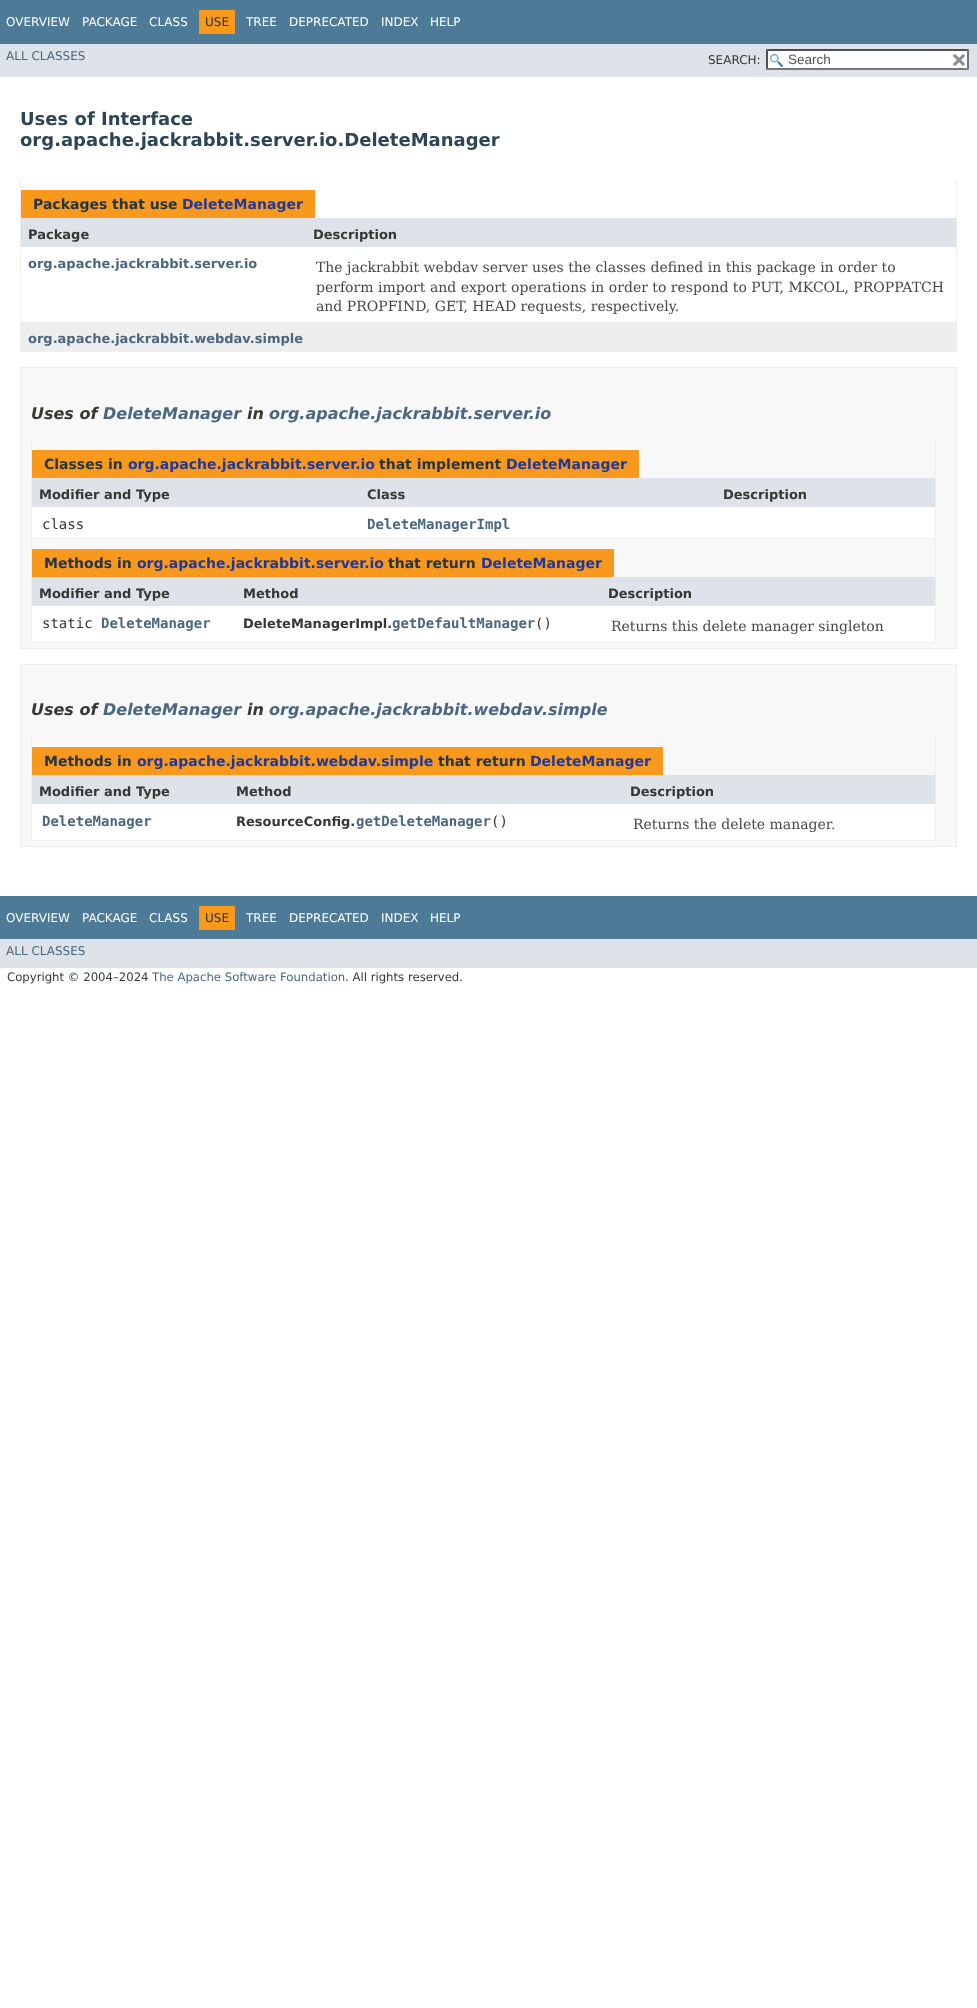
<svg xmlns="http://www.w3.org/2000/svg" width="977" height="2008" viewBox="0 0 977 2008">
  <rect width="100%" height="100%" fill="#ffffff"/>
  <rect x="0" y="0" width="977" height="44" fill="#4d7a97"/>
  <text x="6" y="26" font-family="DejaVu Sans" font-size="12" fill="#ffffff">OVERVIEW</text>
  <text x="82" y="26" font-family="DejaVu Sans" font-size="12" fill="#ffffff">PACKAGE</text>
  <text x="149" y="26" font-family="DejaVu Sans" font-size="12" fill="#ffffff">CLASS</text>
  <rect x="199" y="10" width="36" height="24" fill="#f8981d"/>
  <text x="205" y="26" font-family="DejaVu Sans" font-size="12" fill="#253441">USE</text>
  <text x="246" y="26" font-family="DejaVu Sans" font-size="12" fill="#ffffff">TREE</text>
  <text x="289" y="26" font-family="DejaVu Sans" font-size="12" fill="#ffffff">DEPRECATED</text>
  <text x="381" y="26" font-family="DejaVu Sans" font-size="12" fill="#ffffff">INDEX</text>
  <text x="430" y="26" font-family="DejaVu Sans" font-size="12" fill="#ffffff">HELP</text>
  <rect x="0" y="44" width="977" height="33" fill="#dee3e9"/>
  <text x="6" y="60" font-family="DejaVu Sans" font-size="12" fill="#4a6782">ALL CLASSES</text>
  <text x="708" y="64" font-family="DejaVu Sans" font-size="12" fill="#353833">SEARCH:</text>
  <rect x="766" y="49" width="203" height="21" fill="#ffffff"/>
  <image x="770" y="54" width="13" height="13" href="img1.png"/>
  <path d="M766 49H969L967 51H768Z" fill="#4f4f4f"/>
  <path d="M969 49V70L967 68V51Z" fill="#767676"/>
  <path d="M969 70H766L768 68H967Z" fill="#767676"/>
  <path d="M766 70V49L768 51V68Z" fill="#4f4f4f"/>
  <text x="788" y="64" font-family="Liberation Sans" font-size="13.5" fill="#545454">Search</text>
  <image x="952" y="54" width="14" height="12" href="img2.png"/>
  <text x="20" y="125" font-family="DejaVu Sans" font-size="18" font-weight="bold" fill="#2c4557">Uses of Interface</text>
  <text x="20" y="146" font-family="DejaVu Sans" font-size="18" font-weight="bold" fill="#2c4557">org.apache.jackrabbit.server.io.DeleteManager</text>
  <rect x="956" y="180" width="1" height="172" fill="#eeeeee"/>
  <rect x="20" y="351" width="937" height="1" fill="#eeeeee"/>
  <rect x="20" y="180" width="1" height="172" fill="#eeeeee"/>
  <rect x="21" y="190" width="294" height="28" fill="#f8981d"/>
  <text x="33" y="209" font-family="DejaVu Sans" font-size="14" font-weight="bold" fill="#253441">Packages that use</text>
  <text x="182" y="209" font-family="DejaVu Sans" font-size="14" font-weight="bold" fill="#1f389c">DeleteManager</text>
  <rect x="21" y="218" width="935" height="29" fill="#dee3e9"/>
  <text x="28" y="239" font-family="DejaVu Sans" font-size="13" font-weight="bold" fill="#353833">Package</text>
  <text x="313" y="239" font-family="DejaVu Sans" font-size="13" font-weight="bold" fill="#353833">Description</text>
  <text x="28" y="268" font-family="DejaVu Sans" font-size="13" font-weight="bold" fill="#4a6782">org.apache.jackrabbit.server.io</text>
  <text x="316" y="272" font-family="DejaVu Serif" font-size="14" fill="#474747">The jackrabbit webdav server uses the classes defined in this package in order to</text>
  <text x="316" y="292" font-family="DejaVu Serif" font-size="14" fill="#474747">perform import and export operations in order to respond to PUT, MKCOL, PROPPATCH</text>
  <text x="316" y="311" font-family="DejaVu Serif" font-size="14" fill="#474747">and PROPFIND, GET, HEAD requests, respectively.</text>
  <rect x="21" y="322" width="935" height="29" fill="#eeeeef"/>
  <text x="28" y="343" font-family="DejaVu Sans" font-size="13" font-weight="bold" fill="#4a6782">org.apache.jackrabbit.webdav.simple</text>
  <rect x="20.5" y="367.5" width="936" height="281" fill="#f8f8f8" stroke="#ededed"/>
  <text x="31" y="419" font-family="DejaVu Sans" font-size="16" font-weight="bold" font-style="italic" fill="#353833">Uses of</text>
  <text x="103" y="419" font-family="DejaVu Sans" font-size="16" font-weight="bold" font-style="italic" fill="#4a6782">DeleteManager</text>
  <text x="247" y="419" font-family="DejaVu Sans" font-size="16" font-weight="bold" font-style="italic" fill="#353833">in</text>
  <text x="269" y="419" font-family="DejaVu Sans" font-size="16" font-weight="bold" font-style="italic" fill="#4a6782">org.apache.jackrabbit.server.io</text>
  <rect x="935" y="440" width="1" height="203" fill="#eeeeee"/>
  <rect x="31" y="538" width="905" height="1" fill="#eeeeee"/>
  <rect x="31" y="440" width="1" height="99" fill="#eeeeee"/>
  <rect x="32" y="450" width="607" height="28" fill="#f8981d"/>
  <text x="44" y="469" font-family="DejaVu Sans" font-size="14" font-weight="bold" fill="#253441">Classes in</text>
  <text x="128" y="469" font-family="DejaVu Sans" font-size="14" font-weight="bold" fill="#1f389c">org.apache.jackrabbit.server.io</text>
  <text x="379" y="469" font-family="DejaVu Sans" font-size="14" font-weight="bold" fill="#253441">that implement</text>
  <text x="506" y="469" font-family="DejaVu Sans" font-size="14" font-weight="bold" fill="#1f389c">DeleteManager</text>
  <rect x="32" y="478" width="903" height="29" fill="#dee3e9"/>
  <text x="39" y="499" font-family="DejaVu Sans" font-size="13" font-weight="bold" fill="#353833">Modifier and Type</text>
  <text x="367" y="499" font-family="DejaVu Sans" font-size="13" font-weight="bold" fill="#353833">Class</text>
  <text x="723" y="499" font-family="DejaVu Sans" font-size="13" font-weight="bold" fill="#353833">Description</text>
  <rect x="32" y="507" width="903" height="31" fill="#ffffff"/>
  <text x="42" y="529" font-family="DejaVu Sans Mono" font-size="14" fill="#353833">class</text>
  <text x="367" y="529" font-family="DejaVu Sans Mono" font-size="14" font-weight="bold" fill="#4a6782">DeleteManagerImpl</text>
  <rect x="31" y="642" width="905" height="1" fill="#eeeeee"/>
  <rect x="31" y="539" width="1" height="104" fill="#eeeeee"/>
  <rect x="32" y="549" width="582" height="28" fill="#f8981d"/>
  <text x="44" y="568" font-family="DejaVu Sans" font-size="14" font-weight="bold" fill="#253441">Methods in</text>
  <text x="137" y="568" font-family="DejaVu Sans" font-size="14" font-weight="bold" fill="#1f389c">org.apache.jackrabbit.server.io</text>
  <text x="388" y="568" font-family="DejaVu Sans" font-size="14" font-weight="bold" fill="#253441">that return</text>
  <text x="481" y="568" font-family="DejaVu Sans" font-size="14" font-weight="bold" fill="#1f389c">DeleteManager</text>
  <rect x="32" y="577" width="903" height="29" fill="#dee3e9"/>
  <text x="39" y="598" font-family="DejaVu Sans" font-size="13" font-weight="bold" fill="#353833">Modifier and Type</text>
  <text x="243" y="598" font-family="DejaVu Sans" font-size="13" font-weight="bold" fill="#353833">Method</text>
  <text x="608" y="598" font-family="DejaVu Sans" font-size="13" font-weight="bold" fill="#353833">Description</text>
  <rect x="32" y="606" width="903" height="36" fill="#ffffff"/>
  <text x="42" y="628" font-family="DejaVu Sans Mono" font-size="14" fill="#353833">static</text>
  <text x="101" y="628" font-family="DejaVu Sans Mono" font-size="14" font-weight="bold" fill="#4a6782">DeleteManager</text>
  <text x="243" y="628" font-family="DejaVu Sans" font-size="13" font-weight="bold" fill="#353833">DeleteManagerImpl.</text>
  <text x="392" y="628" font-family="DejaVu Sans Mono" font-size="14" font-weight="bold" fill="#4a6782">getDefaultManager</text>
  <text x="535" y="628" font-family="DejaVu Sans Mono" font-size="14" fill="#353833">()</text>
  <text x="611" y="631" font-family="DejaVu Serif" font-size="14" fill="#474747">Returns this delete manager singleton</text>
  <rect x="20.5" y="664.5" width="936" height="182" fill="#f8f8f8" stroke="#ededed"/>
  <text x="31" y="715" font-family="DejaVu Sans" font-size="16" font-weight="bold" font-style="italic" fill="#353833">Uses of</text>
  <text x="103" y="715" font-family="DejaVu Sans" font-size="16" font-weight="bold" font-style="italic" fill="#4a6782">DeleteManager</text>
  <text x="247" y="715" font-family="DejaVu Sans" font-size="16" font-weight="bold" font-style="italic" fill="#353833">in</text>
  <text x="269" y="715" font-family="DejaVu Sans" font-size="16" font-weight="bold" font-style="italic" fill="#4a6782">org.apache.jackrabbit.webdav.simple</text>
  <rect x="935" y="737" width="1" height="104" fill="#eeeeee"/>
  <rect x="31" y="840" width="905" height="1" fill="#eeeeee"/>
  <rect x="31" y="737" width="1" height="104" fill="#eeeeee"/>
  <rect x="32" y="747" width="631" height="28" fill="#f8981d"/>
  <text x="44" y="766" font-family="DejaVu Sans" font-size="14" font-weight="bold" fill="#253441">Methods in</text>
  <text x="137" y="766" font-family="DejaVu Sans" font-size="14" font-weight="bold" fill="#1f389c">org.apache.jackrabbit.webdav.simple</text>
  <text x="438" y="766" font-family="DejaVu Sans" font-size="14" font-weight="bold" fill="#253441">that return</text>
  <text x="530" y="766" font-family="DejaVu Sans" font-size="14" font-weight="bold" fill="#1f389c">DeleteManager</text>
  <rect x="32" y="775" width="903" height="29" fill="#dee3e9"/>
  <text x="39" y="796" font-family="DejaVu Sans" font-size="13" font-weight="bold" fill="#353833">Modifier and Type</text>
  <text x="236" y="796" font-family="DejaVu Sans" font-size="13" font-weight="bold" fill="#353833">Method</text>
  <text x="630" y="796" font-family="DejaVu Sans" font-size="13" font-weight="bold" fill="#353833">Description</text>
  <rect x="32" y="804" width="903" height="36" fill="#ffffff"/>
  <text x="42" y="826" font-family="DejaVu Sans Mono" font-size="14" font-weight="bold" fill="#4a6782">DeleteManager</text>
  <text x="236" y="826" font-family="DejaVu Sans" font-size="13" font-weight="bold" fill="#353833">ResourceConfig.</text>
  <text x="356" y="826" font-family="DejaVu Sans Mono" font-size="14" font-weight="bold" fill="#4a6782">getDeleteManager</text>
  <text x="491" y="826" font-family="DejaVu Sans Mono" font-size="14" fill="#353833">()</text>
  <text x="633" y="829" font-family="DejaVu Serif" font-size="14" fill="#474747">Returns the delete manager.</text>
  <rect x="0" y="896" width="977" height="43" fill="#4d7a97"/>
  <text x="6" y="922" font-family="DejaVu Sans" font-size="12" fill="#ffffff">OVERVIEW</text>
  <text x="82" y="922" font-family="DejaVu Sans" font-size="12" fill="#ffffff">PACKAGE</text>
  <text x="149" y="922" font-family="DejaVu Sans" font-size="12" fill="#ffffff">CLASS</text>
  <rect x="199" y="906" width="36" height="24" fill="#f8981d"/>
  <text x="205" y="922" font-family="DejaVu Sans" font-size="12" fill="#253441">USE</text>
  <text x="246" y="922" font-family="DejaVu Sans" font-size="12" fill="#ffffff">TREE</text>
  <text x="289" y="922" font-family="DejaVu Sans" font-size="12" fill="#ffffff">DEPRECATED</text>
  <text x="381" y="922" font-family="DejaVu Sans" font-size="12" fill="#ffffff">INDEX</text>
  <text x="430" y="922" font-family="DejaVu Sans" font-size="12" fill="#ffffff">HELP</text>
  <rect x="0" y="939" width="977" height="29" fill="#dee3e9"/>
  <text x="6" y="955" font-family="DejaVu Sans" font-size="12" fill="#4a6782">ALL CLASSES</text>
  <text x="7" y="981" font-family="DejaVu Sans" font-size="11.7" fill="#353833">Copyright © 2004–2024</text>
  <text x="152" y="981" font-family="DejaVu Sans" font-size="11.7" fill="#4a6782">The Apache Software Foundation</text>
  <text x="345" y="981" font-family="DejaVu Sans" font-size="11.7" fill="#353833">. All rights reserved.</text>
</svg>
